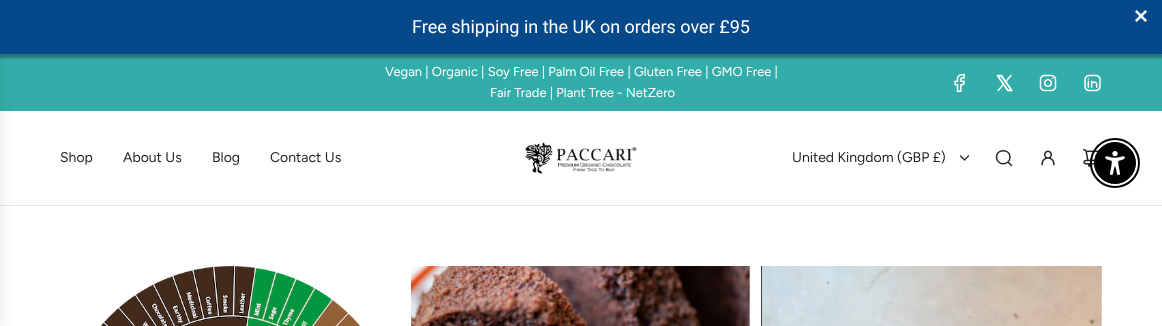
<svg xmlns="http://www.w3.org/2000/svg" width="1162" height="326" viewBox="0 0 1162 326">
  <defs>
    <filter id="blur1" x="-50%" y="-200%" width="200%" height="500%"><feGaussianBlur stdDeviation="1"/></filter>
    <filter id="blur2" x="-50%" y="-200%" width="200%" height="500%"><feGaussianBlur stdDeviation="7.5"/></filter>
  </defs>
  <rect width="100%" height="100%" fill="#ffffff"/>
  <rect x="0" y="54" width="1162" height="57" fill="#33adaa"/>
  <rect x="-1" y="2" width="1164" height="56" fill="#000000" fill-opacity="0.3" filter="url(#blur1)"/>
  <rect x="0" y="205" width="1162" height="1" fill="#e6e5e7"/>
  <rect x="-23" y="5" width="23" height="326" fill="#000000" fill-opacity="0.1" filter="url(#blur2)"/>
  <rect x="0" y="0" width="1162" height="54" fill="#06498b"/>
  <image x="1135" y="10" width="12" height="12" href="img1.png"/>
  <text x="412" y="33" font-family="Roboto" font-size="18" fill="#ffffff">Free shipping in the UK on orders over £95</text>
  <text x="385" y="76" font-family="Figtree" font-size="13" fill="#ffffff">Vegan | Organic | Soy Free | Palm Oil Free | Gluten Free | GMO Free |</text>
  <text x="490" y="97" font-family="Figtree" font-size="13" fill="#ffffff">Fair Trade | Plant Tree - NetZero</text>
  <image x="954" y="73" width="11" height="20" href="img2.png"/>
  <image x="996" y="74" width="17" height="18" href="img3.png"/>
  <image x="1039" y="74" width="18" height="18" href="img4.png"/>
  <image x="1084" y="74" width="17" height="18" href="img5.png"/>
  <text x="60" y="162" font-family="Figtree" font-size="14" fill="#242424">Shop</text>
  <text x="123" y="162" font-family="Figtree" font-size="14" fill="#242424">About Us</text>
  <text x="212" y="162" font-family="Figtree" font-size="14" fill="#242424">Blog</text>
  <text x="270" y="162" font-family="Figtree" font-size="14" fill="#242424">Contact Us</text>
  <image x="525" y="142" width="112" height="32" href="img6.png"/>
  <text x="792" y="162" font-family="Figtree" font-size="14" fill="#242424">United Kingdom (GBP £)</text>
  <path d="M960.5 156L964.5 160L968.5 156" fill="none" stroke="#242424" stroke-width="1.2" stroke-linecap="round" stroke-linejoin="round"/>
  <path d="M1008 162L1011.5 165.5M996.5 157C996.5 166 1010 166 1010 157C1010 148.5 996.5 148.5 996.5 157Z" fill="none" stroke="#242424" stroke-width="1.5" stroke-linecap="round" stroke-linejoin="round"/>
  <image x="1041" y="150" width="14" height="16" href="img7.png"/>
  <image x="1082" y="148" width="17" height="20" href="img8.png"/>
  <image x="101" y="266" width="259" height="60" href="img9.png"/>
  <image x="411" y="266" width="340" height="60" href="img10.png"/>
  <image x="761" y="266" width="341" height="60" href="img11.png"/>
  <circle cx="1115" cy="163" r="24" fill="none" stroke="#000000" stroke-width="2"/>
  <circle cx="1115" cy="163" r="20.5" fill="#000000" stroke="#000000"/>
  <image x="1105" y="151" width="20" height="24" href="img12.png"/>
</svg>
